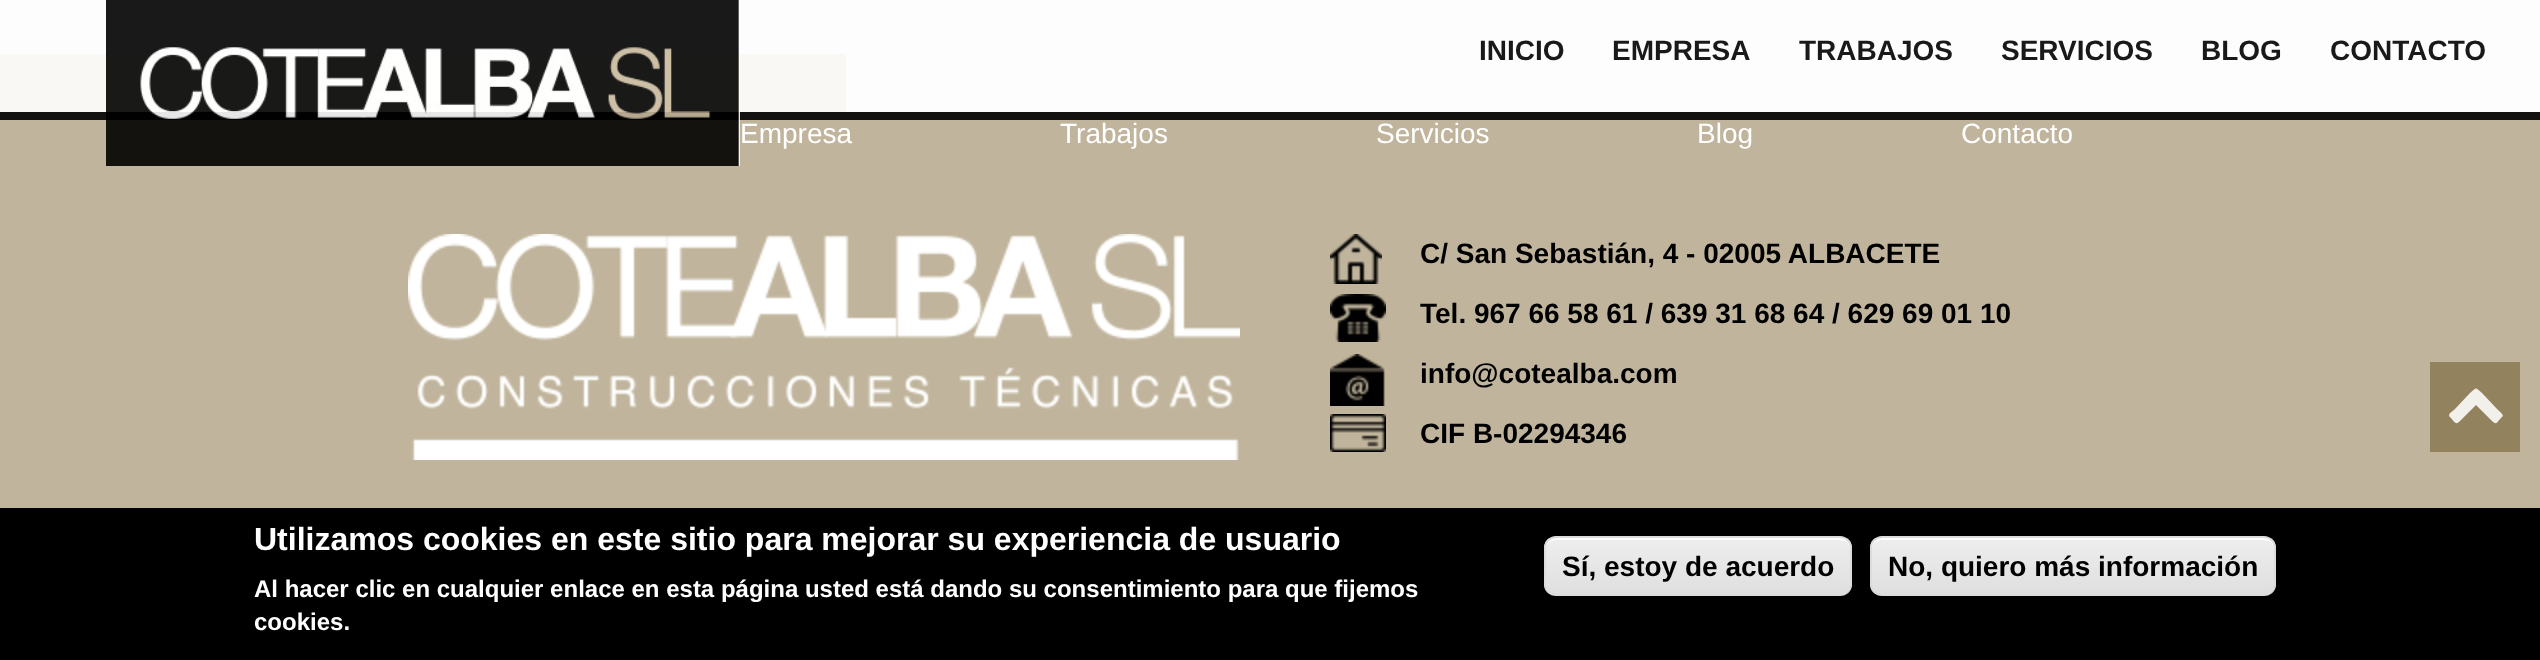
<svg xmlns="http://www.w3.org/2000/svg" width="2540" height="660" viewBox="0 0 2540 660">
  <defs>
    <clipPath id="clip1"><rect x="1544" y="536" width="308" height="60" rx="12"/></clipPath>
    <linearGradient id="g1" gradientUnits="userSpaceOnUse" x1="1546" y1="538" x2="1546" y2="594"><stop offset="0.05" stop-color="#ededed"/><stop offset="1" stop-color="#dfdfdf"/></linearGradient>
    <clipPath id="clip2"><rect x="1870" y="536" width="406" height="60" rx="12"/></clipPath>
    <linearGradient id="g2" gradientUnits="userSpaceOnUse" x1="1872" y1="538" x2="1872" y2="594"><stop offset="0.05" stop-color="#ededed"/><stop offset="1" stop-color="#dfdfdf"/></linearGradient>
  </defs>
  <rect width="100%" height="100%" fill="#fdfdfe"/>
  <rect x="0" y="112" width="2540" height="8" fill="#131210"/>
  <rect x="0" y="120" width="2540" height="388" fill="#c0b59c"/>
  <rect x="0" y="54" width="846" height="58" fill="#f9f8f5"/>
  <image x="106" y="0" width="634" height="166" href="img1.png"/>
  <text x="1479" y="60" font-family="Liberation Sans" font-size="28" font-weight="bold" fill="#191919">INICIO</text>
  <text x="1612" y="60" font-family="Liberation Sans" font-size="28" font-weight="bold" fill="#191919">EMPRESA</text>
  <text x="1799" y="60" font-family="Liberation Sans" font-size="28" font-weight="bold" fill="#191919">TRABAJOS</text>
  <text x="2001" y="60" font-family="Liberation Sans" font-size="28" font-weight="bold" fill="#191919">SERVICIOS</text>
  <text x="2201" y="60" font-family="Liberation Sans" font-size="28" font-weight="bold" fill="#191919">BLOG</text>
  <text x="2330" y="60" font-family="Liberation Sans" font-size="28" font-weight="bold" fill="#191919">CONTACTO</text>
  <text x="740" y="143" font-family="Liberation Sans" font-size="28" fill="#ffffff">Empresa</text>
  <text x="1060" y="143" font-family="Liberation Sans" font-size="28" fill="#ffffff">Trabajos</text>
  <text x="1376" y="143" font-family="Liberation Sans" font-size="28" fill="#ffffff">Servicios</text>
  <text x="1697" y="143" font-family="Liberation Sans" font-size="28" fill="#ffffff">Blog</text>
  <text x="1961" y="143" font-family="Liberation Sans" font-size="28" fill="#ffffff">Contacto</text>
  <image x="408" y="234" width="832" height="226" href="img2.png"/>
  <image x="1330" y="234" width="52" height="50" href="img3.png"/>
  <text x="1420" y="263" font-family="Liberation Sans" font-size="28" font-weight="bold" fill="#000000">C/ San Sebastián, 4 - 02005 ALBACETE</text>
  <image x="1330" y="294" width="56" height="48" href="img4.png"/>
  <text x="1420" y="323" font-family="Liberation Sans" font-size="28" font-weight="bold" fill="#000000">Tel. 967 66 58 61 / 639 31 68 64 / 629 69 01 10</text>
  <image x="1330" y="354" width="55" height="52" href="img5.png"/>
  <text x="1420" y="383" font-family="Liberation Sans" font-size="28" font-weight="bold" fill="#000000">info@cotealba.com</text>
  <image x="1330" y="414" width="56" height="38" href="img6.png"/>
  <text x="1420" y="443" font-family="Liberation Sans" font-size="28" font-weight="bold" fill="#000000">CIF B-02294346</text>
  <rect x="2430" y="362" width="90" height="90" fill="#92825e"/>
  <path d="M2502 417C2496 423 2497 426 2491 420L2476 405L2461 420C2456 425 2456 424 2451 418C2447 415 2450 413 2454 410L2470 393C2477 387 2475 387 2482 393L2498 410C2499 411 2505 415 2502 417Z" fill="#f2f0eb"/>
  <rect x="0" y="508" width="2540" height="152" fill="#000000"/>
  <text x="254" y="550" font-family="Liberation Sans" font-size="32" font-weight="bold" fill="#ffffff">Utilizamos cookies en este sitio para mejorar su experiencia de usuario</text>
  <text x="254" y="597" font-family="Liberation Sans" font-size="24" font-weight="bold" fill="#ffffff">Al hacer clic en cualquier enlace en esta página usted está dando su consentimiento para que fijemos</text>
  <text x="254" y="630" font-family="Liberation Sans" font-size="24" font-weight="bold" fill="#ffffff">cookies.</text>
  <g clip-path="url(#clip1)">
    <rect x="1544" y="538" width="308" height="56" fill="url(#g1)"/>
  </g>
  <path d="M1556 540H1840C1846 540 1850 544 1850 550V548C1850 542 1846 538 1840 538H1556C1550 538 1546 542 1546 548V550C1546 544 1550 540 1556 540Z" fill="#ffffff"/>
  <rect x="1545" y="537" width="306" height="58" rx="11" fill="none" stroke="#dcdcdc" stroke-width="2"/>
  <text x="1562" y="576" font-family="Liberation Sans" font-size="28" font-weight="bold" fill="#000000">Sí, estoy de acuerdo</text>
  <g clip-path="url(#clip2)">
    <rect x="1870" y="538" width="406" height="56" fill="url(#g2)"/>
  </g>
  <path d="M1882 540H2264C2270 540 2274 544 2274 550V548C2274 542 2270 538 2264 538H1882C1876 538 1872 542 1872 548V550C1872 544 1876 540 1882 540Z" fill="#ffffff"/>
  <rect x="1871" y="537" width="404" height="58" rx="11" fill="none" stroke="#dcdcdc" stroke-width="2"/>
  <text x="1888" y="576" font-family="Liberation Sans" font-size="28" font-weight="bold" fill="#000000">No, quiero más información</text>
</svg>
